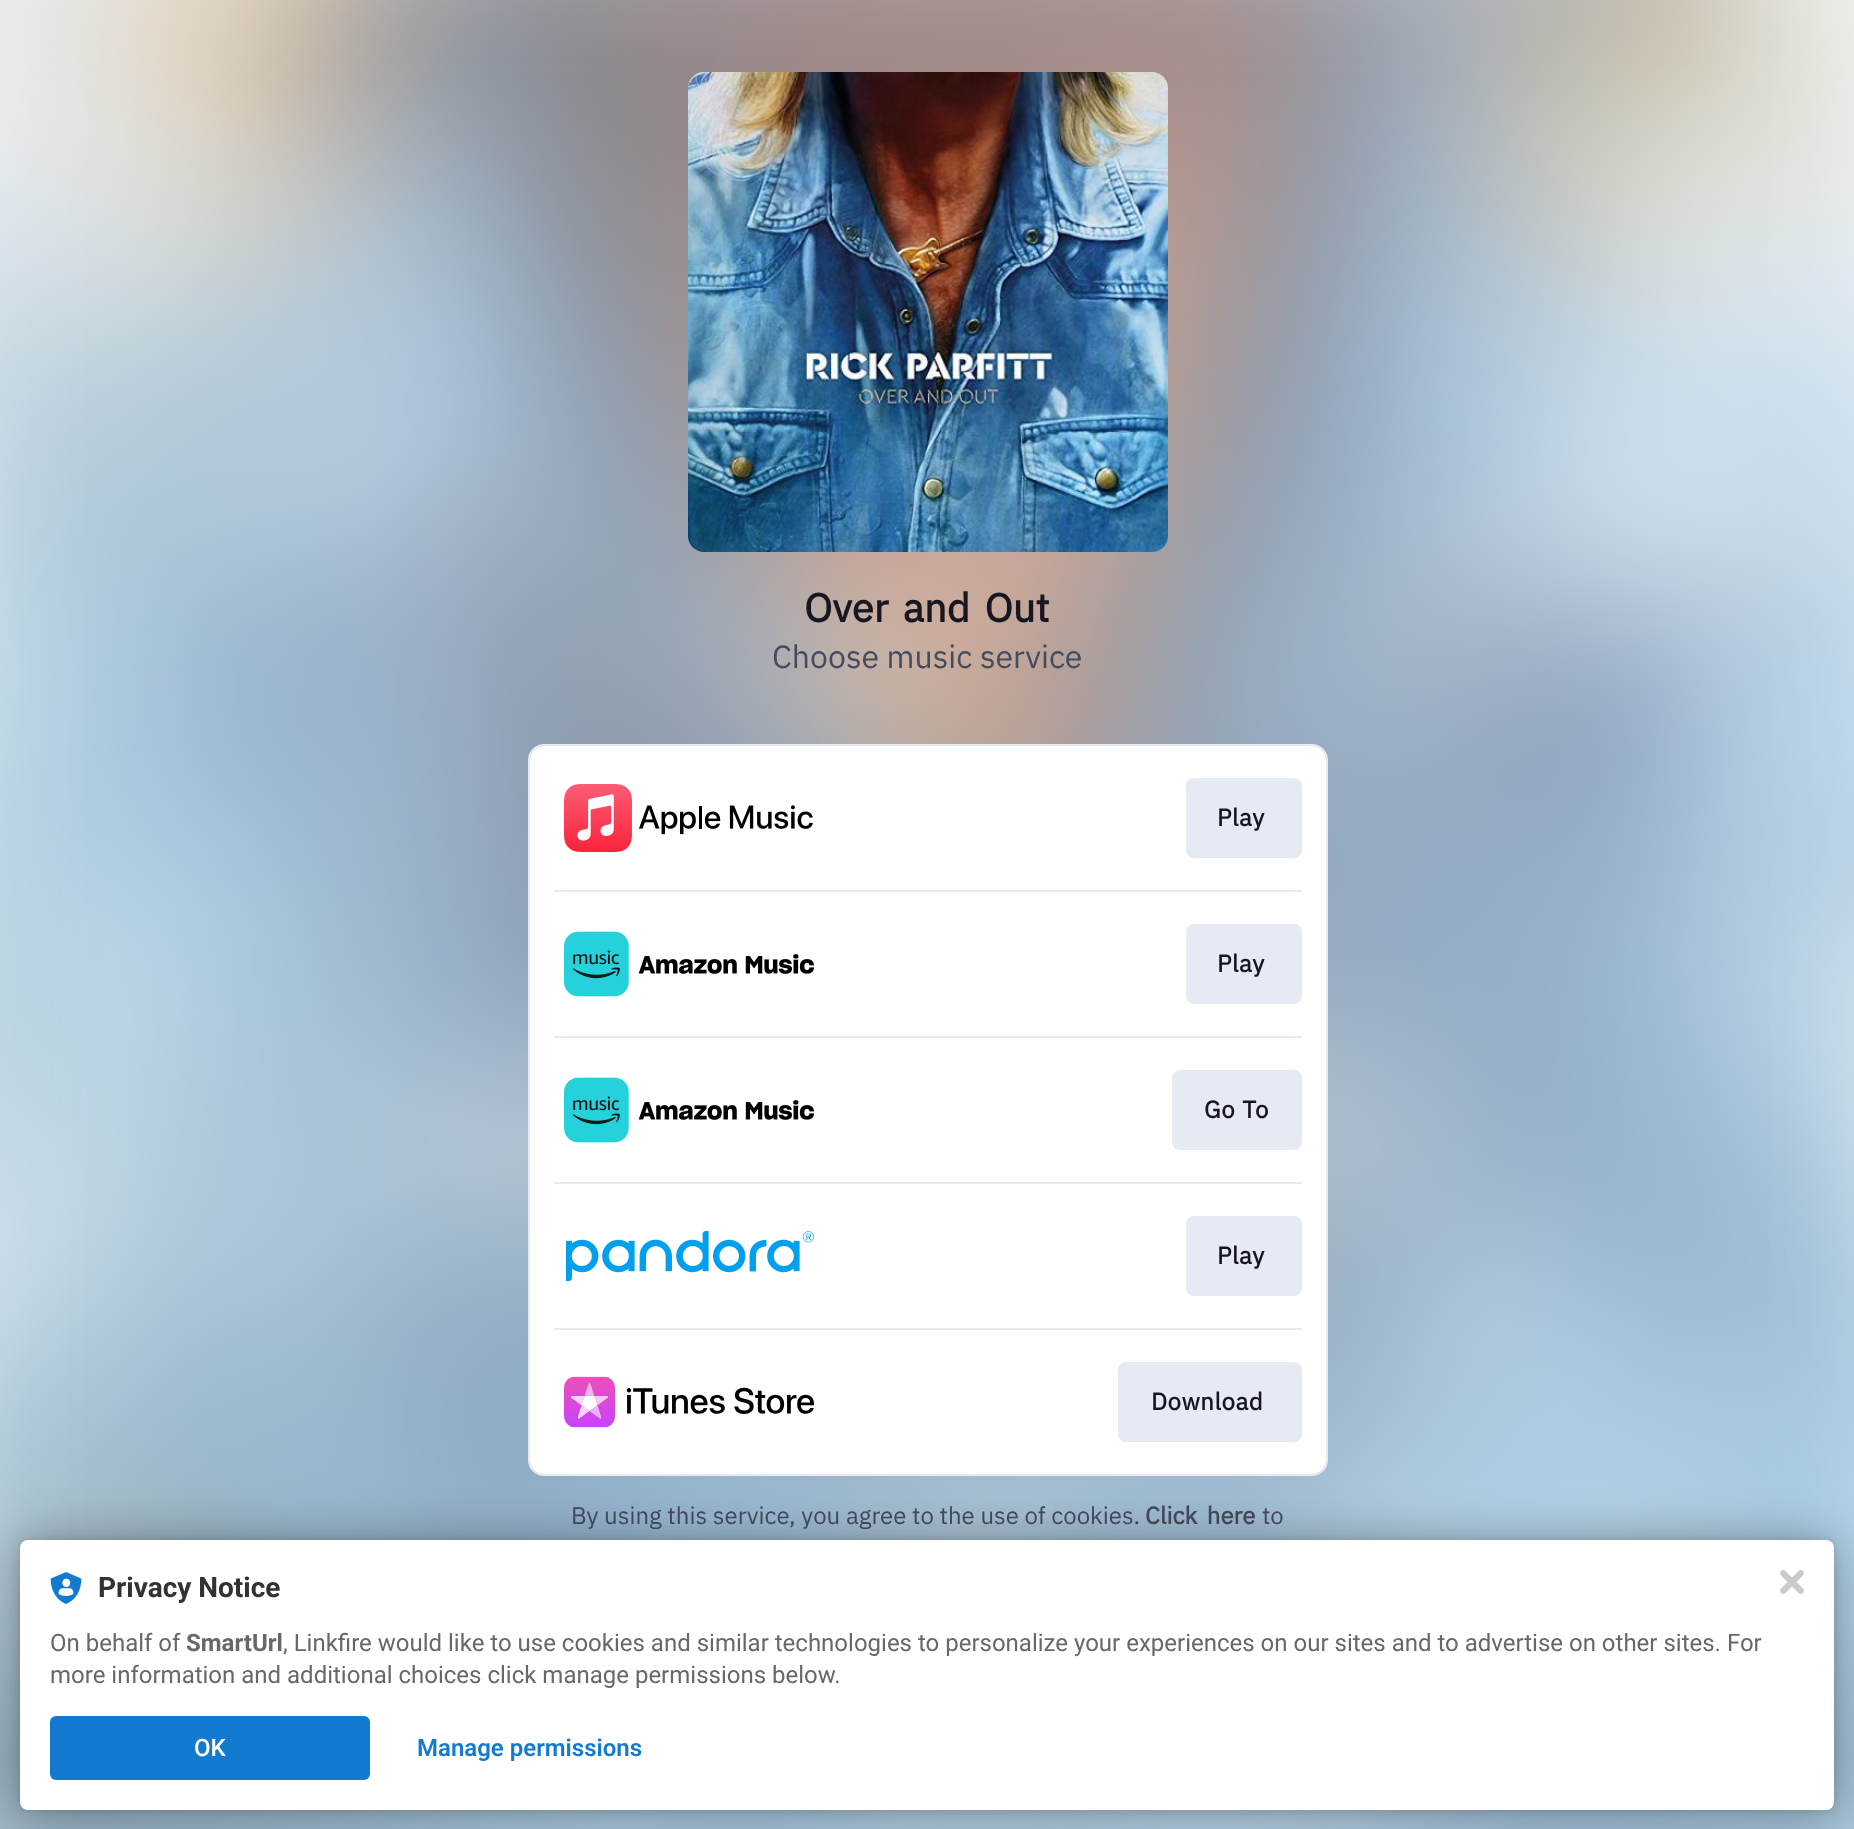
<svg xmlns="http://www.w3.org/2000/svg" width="1854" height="1829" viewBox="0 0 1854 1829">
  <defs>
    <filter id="blur1" x="-50%" y="-200%" width="200%" height="500%"><feGaussianBlur stdDeviation="4"/></filter>
    <filter id="blur2" x="-50%" y="-200%" width="200%" height="500%"><feGaussianBlur stdDeviation="24"/></filter>
  </defs>
  <rect width="100%" height="100%" fill="#ffffff"/>
  <image x="0" y="0" width="1854" height="1829" href="img1.png"/>
  <image x="688" y="72" width="480" height="480" href="img2.png"/>
  <text x="804" y="622" word-spacing="5" font-family="IBM Plex Sans" font-size="40" font-weight="bold" fill="#181721">Over and Out</text>
  <text x="772" y="668" font-family="IBM Plex Sans" font-size="32" fill="#454b5f">Choose music service</text>
  <rect x="529" y="745" width="798" height="730" rx="15" fill="none" stroke="#e6eaf2" stroke-width="2"/>
  <rect x="530" y="746" width="796" height="728" rx="14" fill="#ffffff"/>
  <image x="564" y="784" width="249" height="68" href="img3.png"/>
  <rect x="1186" y="778" width="116" height="80" rx="8" fill="#e6eaf2"/>
  <text x="1217" y="826" font-family="IBM Plex Sans" font-size="24" font-weight="bold" letter-spacing="0.5" fill="#181721">Play</text>
  <rect x="554" y="890" width="748" height="2" fill="#e6eaf2"/>
  <image x="564" y="931" width="250" height="66" href="img4.png"/>
  <rect x="1186" y="924" width="116" height="80" rx="8" fill="#e6eaf2"/>
  <text x="1217" y="972" font-family="IBM Plex Sans" font-size="24" font-weight="bold" letter-spacing="0.5" fill="#181721">Play</text>
  <rect x="554" y="1036" width="748" height="2" fill="#e6eaf2"/>
  <image x="564" y="1077" width="250" height="66" href="img4.png"/>
  <rect x="1172" y="1070" width="130" height="80" rx="8" fill="#e6eaf2"/>
  <text x="1204" y="1118" word-spacing="1" font-family="IBM Plex Sans" font-size="24" font-weight="bold" letter-spacing="0.5" fill="#181721">Go To</text>
  <rect x="554" y="1182" width="748" height="2" fill="#e6eaf2"/>
  <image x="566" y="1231" width="248" height="50" href="img5.png"/>
  <rect x="1186" y="1216" width="116" height="80" rx="8" fill="#e6eaf2"/>
  <text x="1217" y="1264" font-family="IBM Plex Sans" font-size="24" font-weight="bold" letter-spacing="0.5" fill="#181721">Play</text>
  <rect x="554" y="1328" width="748" height="2" fill="#e6eaf2"/>
  <image x="564" y="1376" width="250" height="52" href="img6.png"/>
  <rect x="1118" y="1362" width="184" height="80" rx="8" fill="#e6eaf2"/>
  <text x="1151" y="1410" font-family="IBM Plex Sans" font-size="24" font-weight="bold" letter-spacing="0.5" fill="#181721">Download</text>
  <text x="571" y="1524" font-family="IBM Plex Sans" font-size="24" fill="#454b5f">By using this service, you agree to the use of cookies.</text>
  <text x="1145" y="1524" word-spacing="4" font-family="IBM Plex Sans" font-size="24" font-weight="bold" fill="#454b5f">Click here</text>
  <text x="1262" y="1524" font-family="IBM Plex Sans" font-size="24" fill="#454b5f">to</text>
  <rect x="20" y="1540" width="1814" height="270" rx="8" fill="#000000" fill-opacity="0.12" filter="url(#blur1)"/>
  <rect x="20" y="1540" width="1814" height="270" rx="8" fill="#000000" fill-opacity="0.3" filter="url(#blur2)"/>
  <rect x="20" y="1540" width="1814" height="270" rx="8" fill="#ffffff"/>
  <image x="50" y="1572" width="32" height="32" href="img7.png"/>
  <text x="98" y="1597" font-family="Roboto" font-size="28" font-weight="bold" fill="#323232">Privacy Notice</text>
  <text x="50" y="1651" font-family="Roboto" font-size="24" fill="#686868">On behalf of</text>
  <text x="186" y="1651" font-family="Roboto" font-size="24" font-weight="bold" fill="#686868">SmartUrl</text>
  <text x="283" y="1651" font-family="Roboto" font-size="24" fill="#686868">, Linkfire would like to use cookies and similar technologies to personalize your experiences on our sites and to advertise on other sites. For</text>
  <text x="50" y="1683" font-family="Roboto" font-size="24" fill="#686868">more information and additional choices click manage permissions below.</text>
  <rect x="50" y="1716" width="320" height="64" rx="6" fill="#137bcf"/>
  <text x="194" y="1756" font-family="Roboto" font-size="24" font-weight="500" fill="#ffffff">OK</text>
  <text x="417" y="1756" font-family="Roboto" font-size="24" font-weight="600" fill="#137bcf">Manage permissions</text>
  <image x="1780" y="1570" width="24" height="24" href="img8.png"/>
</svg>
